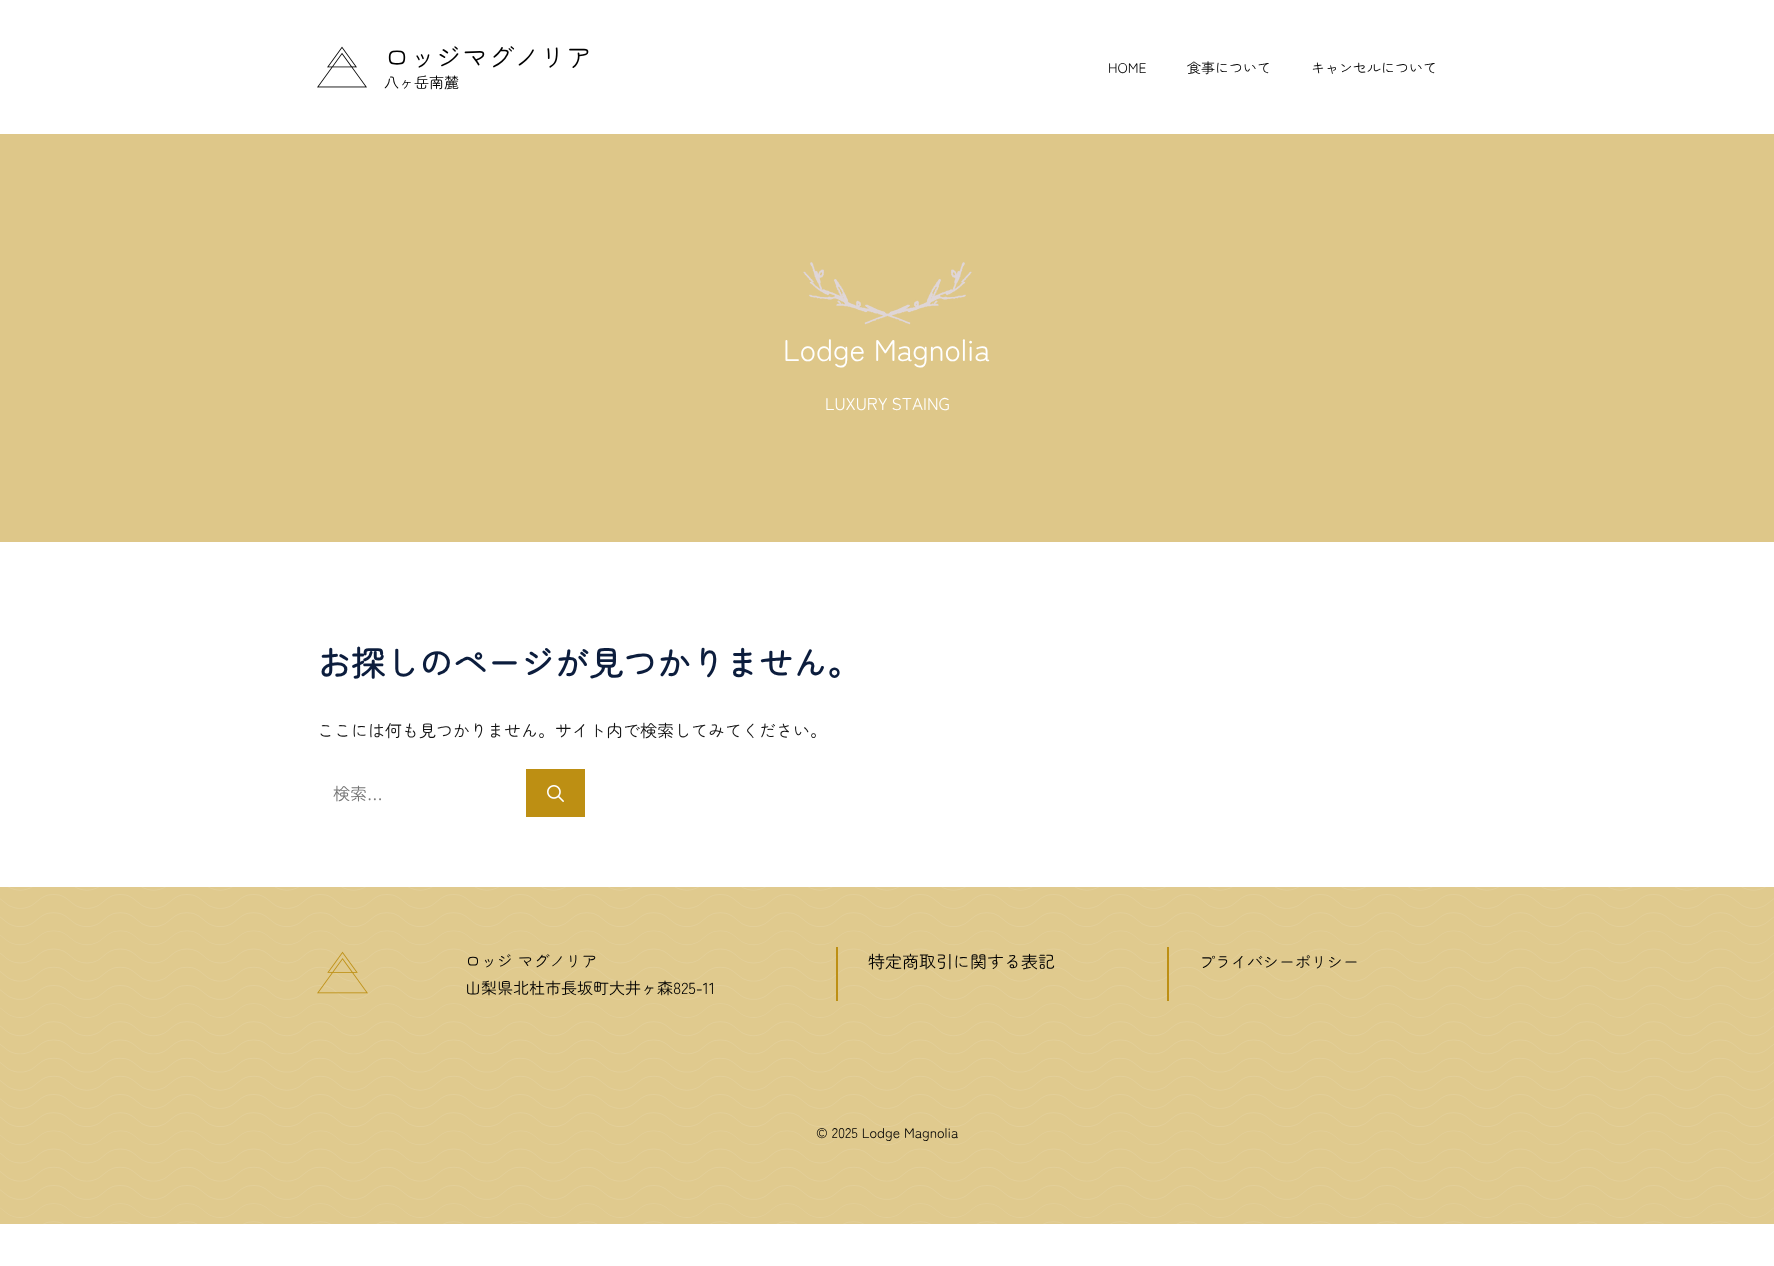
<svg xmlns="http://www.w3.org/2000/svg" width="1774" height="1266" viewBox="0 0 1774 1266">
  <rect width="100%" height="100%" fill="#ffffff"/>
  <image x="317" y="46" width="50" height="42" href="img1.png"/>
  <text x="384" y="67" font-family="Zen Maru Gothic" font-size="26" fill="#000000">ロッジマグノリア</text>
  <text x="384" y="88" font-family="Zen Maru Gothic" font-size="15" fill="#000000">八ヶ岳南麓</text>
  <text x="1108" y="73" font-family="Zen Maru Gothic" font-size="14" fill="#000000">HOME</text>
  <text x="1187" y="73" font-family="Zen Maru Gothic" font-size="14" fill="#000000">食事について</text>
  <text x="1311" y="73" font-family="Zen Maru Gothic" font-size="14" fill="#000000">キャンセルについて</text>
  <rect x="0" y="134" width="1774" height="408" fill="#dec789"/>
  <image x="803" y="262" width="169" height="63" href="img2.png"/>
  <text x="783" y="361" font-family="Zen Maru Gothic" font-size="30" fill="#ffffff">Lodge Magnolia</text>
  <text x="825" y="410" word-spacing="-1" font-family="Zen Maru Gothic" font-size="17" fill="#ffffff">LUXURY STAING</text>
  <text x="317" y="676" font-family="Zen Maru Gothic" font-size="34" font-weight="bold" fill="#0c1d3d">お探しのページが見つかりません。</text>
  <text x="317" y="737" font-family="Zen Maru Gothic" font-size="17" fill="#121212">ここには何も見つかりません。サイト内で検索してみてください。</text>
  <text x="333" y="800" font-family="Zen Maru Gothic" font-size="17" fill="#757575">検索…</text>
  <rect x="526" y="769" width="59" height="48" fill="#bd8f13"/>
  <image x="547" y="785" width="17" height="17" href="img3.png"/>
  <rect x="0" y="887" width="1774" height="337" fill="#e0ca8e"/>
  <image x="0" y="887" width="1774" height="337" href="img4.png"/>
  <image x="317" y="951" width="51" height="43" href="img5.png"/>
  <text x="465" y="967" font-family="Zen Maru Gothic" font-size="16" fill="#000000">ロッジ マグノリア</text>
  <text x="465" y="994" font-family="Zen Maru Gothic" font-size="16" fill="#000000">山梨県北杜市長坂町大井ヶ森825-11</text>
  <rect x="836" y="947" width="2" height="54" fill="#bd8f13"/>
  <text x="868" y="968" font-family="Zen Maru Gothic" font-size="17" fill="#000000">特定商取引に関する表記</text>
  <rect x="1167" y="947" width="2" height="54" fill="#bd8f13"/>
  <text x="1199" y="968" font-family="Zen Maru Gothic" font-size="16" fill="#000000">プライバシーポリシー</text>
  <text x="816" y="1138" font-family="Zen Maru Gothic" font-size="14" fill="#000000">© 2025 Lodge Magnolia</text>
</svg>
